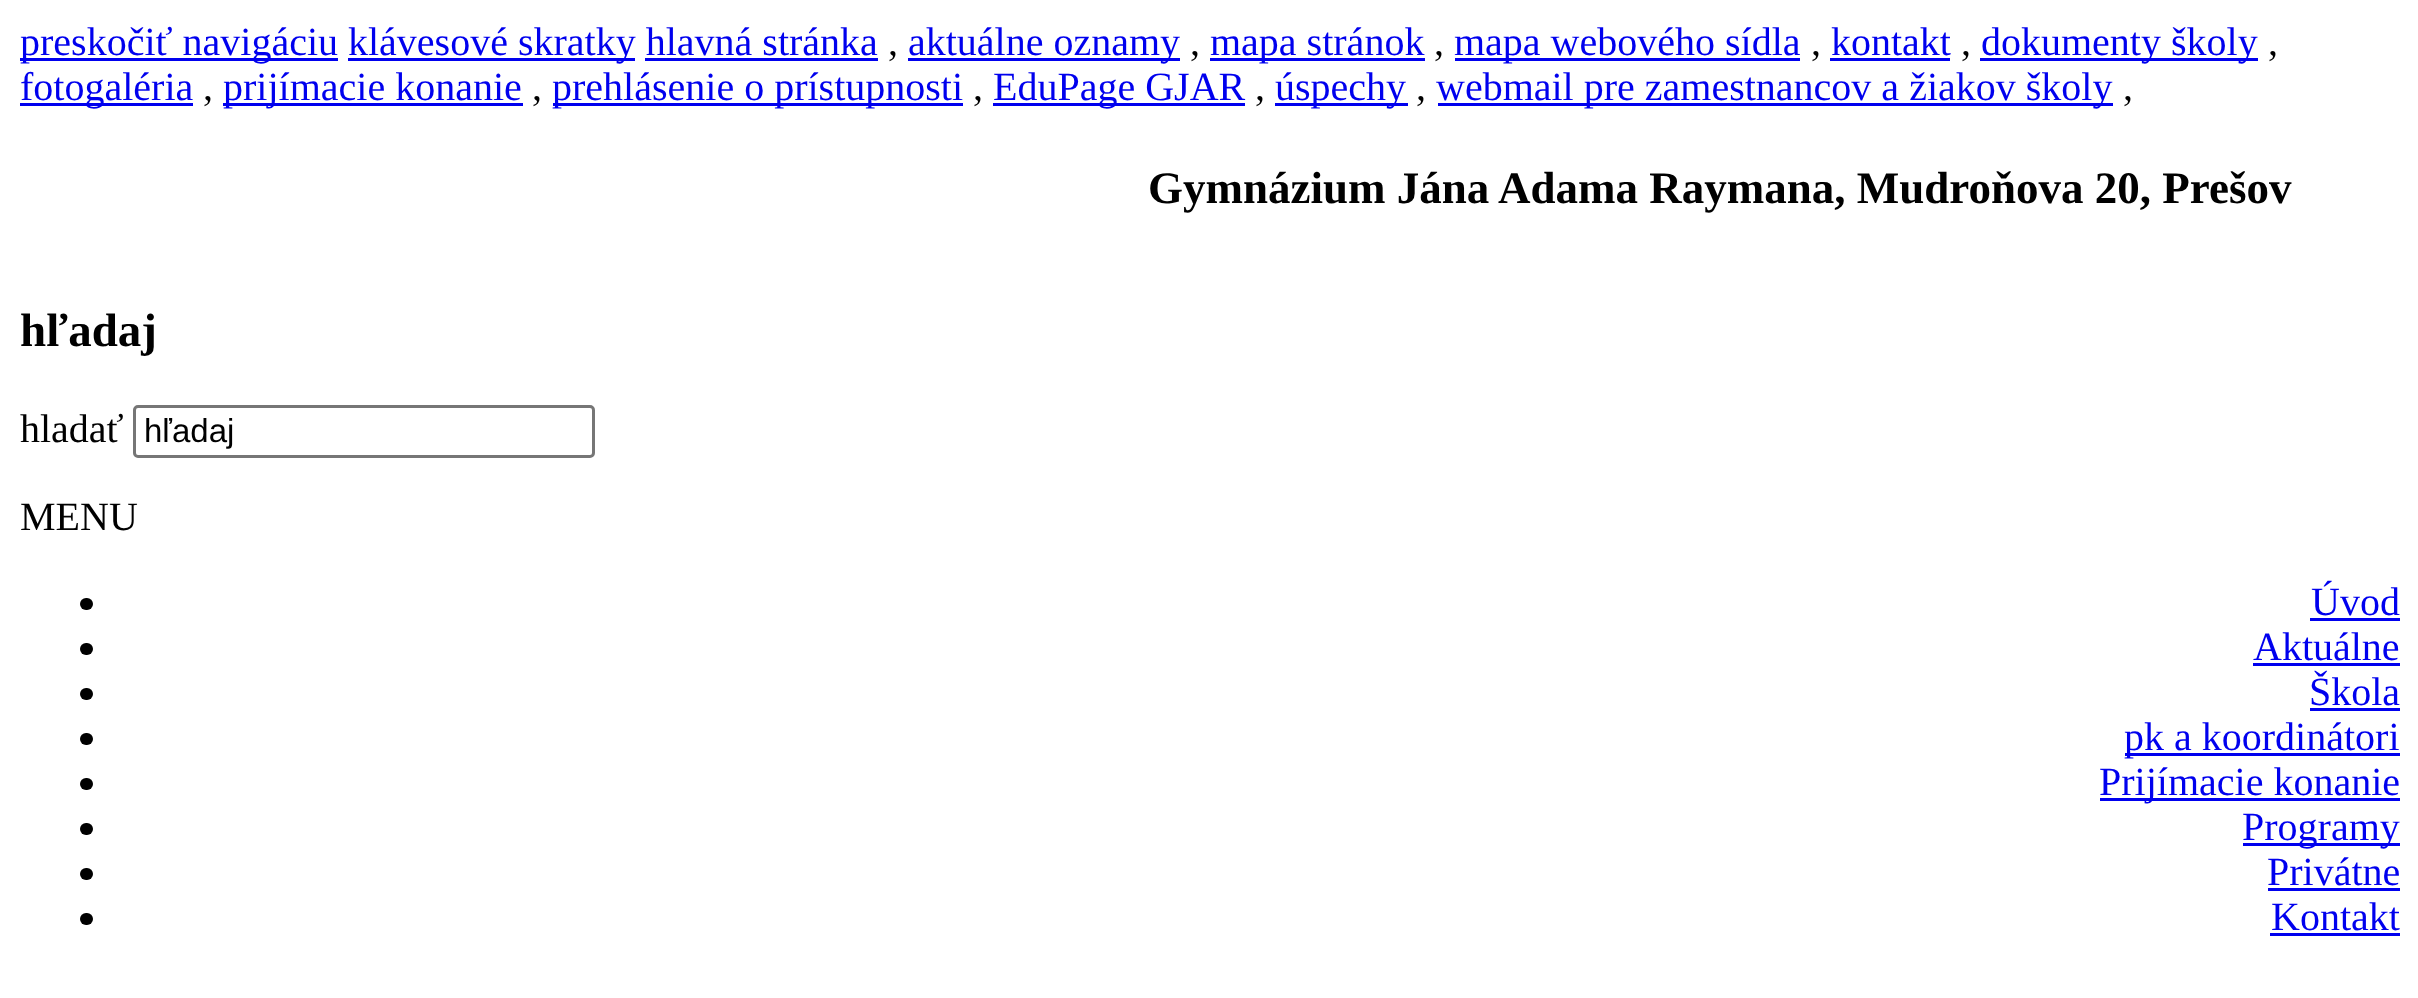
<svg xmlns="http://www.w3.org/2000/svg" width="2418" height="998" viewBox="0 0 2418 998">
  <rect width="100%" height="100%" fill="#ffffff"/>
  <rect x="20" y="58" width="318" height="3" fill="#0000ee"/>
  <text x="20" y="55" font-family="Liberation Serif" font-size="40" fill="#0000ee">preskočiť navigáciu</text>
  <rect x="348" y="58" width="287" height="3" fill="#0000ee"/>
  <text x="348" y="55" font-family="Liberation Serif" font-size="40" fill="#0000ee">klávesové skratky hlavná stránka</text>
  <text x="888" y="55" font-family="Liberation Serif" font-size="40" fill="#000000">,</text>
  <rect x="908" y="58" width="272" height="3" fill="#0000ee"/>
  <text x="908" y="55" font-family="Liberation Serif" font-size="40" fill="#0000ee">aktuálne oznamy</text>
  <text x="1190" y="55" font-family="Liberation Serif" font-size="40" fill="#000000">,</text>
  <rect x="1210" y="58" width="215" height="3" fill="#0000ee"/>
  <text x="1210" y="55" font-family="Liberation Serif" font-size="40" fill="#0000ee">mapa stránok</text>
  <text x="1434" y="55" font-family="Liberation Serif" font-size="40" fill="#000000">,</text>
  <rect x="1455" y="58" width="345" height="3" fill="#0000ee"/>
  <text x="1454" y="55" font-family="Liberation Serif" font-size="40" fill="#0000ee">mapa webového sídla</text>
  <text x="1811" y="55" font-family="Liberation Serif" font-size="40" fill="#000000">,</text>
  <text x="1831" y="55" font-family="Liberation Serif" font-size="40" fill="#0000ee">kontakt</text>
  <rect x="1830" y="58" width="120" height="3" fill="#0000ee"/>
  <text x="1961" y="55" font-family="Liberation Serif" font-size="40" fill="#000000">,</text>
  <rect x="1980" y="58" width="278" height="3" fill="#0000ee"/>
  <text x="1981" y="55" font-family="Liberation Serif" font-size="40" fill="#0000ee">dokumenty školy</text>
  <text x="2268" y="55" font-family="Liberation Serif" font-size="40" fill="#000000">,</text>
  <rect x="645" y="58" width="233" height="3" fill="#0000ee"/>
  <rect x="20" y="103" width="173" height="3" fill="#0000ee"/>
  <text x="20" y="100" font-family="Liberation Serif" font-size="40" fill="#0000ee">fotogaléria</text>
  <text x="203" y="100" font-family="Liberation Serif" font-size="40" fill="#000000">,</text>
  <rect x="223" y="103" width="300" height="3" fill="#0000ee"/>
  <text x="223" y="100" font-family="Liberation Serif" font-size="40" fill="#0000ee">prijímacie konanie</text>
  <text x="532" y="100" font-family="Liberation Serif" font-size="40" fill="#000000">,</text>
  <rect x="553" y="103" width="410" height="3" fill="#0000ee"/>
  <text x="552" y="100" font-family="Liberation Serif" font-size="40" fill="#0000ee">prehlásenie o prístupnosti</text>
  <text x="973" y="100" font-family="Liberation Serif" font-size="40" fill="#000000">,</text>
  <rect x="993" y="103" width="252" height="3" fill="#0000ee"/>
  <text x="993" y="100" font-family="Liberation Serif" font-size="40" fill="#0000ee">EduPage GJAR</text>
  <text x="1255" y="100" font-family="Liberation Serif" font-size="40" fill="#000000">,</text>
  <rect x="1275" y="103" width="133" height="3" fill="#0000ee"/>
  <text x="1275" y="100" font-family="Liberation Serif" font-size="40" fill="#0000ee">úspechy</text>
  <text x="1416" y="100" font-family="Liberation Serif" font-size="40" fill="#000000">,</text>
  <rect x="1438" y="103" width="675" height="3" fill="#0000ee"/>
  <text x="1436" y="100" font-family="Liberation Serif" font-size="40" fill="#0000ee">webmail pre zamestnancov a žiakov školy</text>
  <text x="2123" y="100" font-family="Liberation Serif" font-size="40" fill="#000000">,</text>
  <text x="1148" y="203" font-family="Liberation Serif" font-size="45" font-weight="bold" fill="#000000">Gymnázium Jána Adama Raymana, Mudroňova 20, Prešov</text>
  <text x="20" y="346" font-family="Liberation Serif" font-size="47" font-weight="bold" fill="#000000">hľadaj</text>
  <text x="20" y="442" font-family="Liberation Serif" font-size="40" fill="#000000">hladať</text>
  <rect x="134.5" y="406.5" width="459" height="50" rx="3.5" fill="none" stroke="#767676" stroke-width="3"/>
  <text x="144" y="442" font-family="Liberation Sans" font-size="33" fill="#000000">hľadaj</text>
  <text x="20" y="530" font-family="Liberation Serif" font-size="40" fill="#000000">MENU</text>
  <rect x="80" y="598" width="13" height="12" rx="6" fill="#000000"/>
  <text x="2311" y="615" font-family="Liberation Serif" font-size="40" fill="#0000ee">Úvod</text>
  <rect x="2310" y="618" width="90" height="3" fill="#0000ee"/>
  <rect x="80" y="643" width="13" height="12" rx="6" fill="#000000"/>
  <text x="2253" y="660" font-family="Liberation Serif" font-size="40" fill="#0000ee">Aktuálne</text>
  <rect x="2253" y="663" width="147" height="3" fill="#0000ee"/>
  <rect x="80" y="688" width="13" height="12" rx="6" fill="#000000"/>
  <text x="2309" y="705" font-family="Liberation Serif" font-size="40" fill="#0000ee">Škola</text>
  <rect x="2310" y="708" width="90" height="3" fill="#0000ee"/>
  <rect x="80" y="733" width="13" height="12" rx="6" fill="#000000"/>
  <rect x="2125" y="753" width="275" height="3" fill="#0000ee"/>
  <text x="2124" y="750" font-family="Liberation Serif" font-size="40" fill="#0000ee">pk a koordinátori</text>
  <rect x="80" y="778" width="13" height="12" rx="6" fill="#000000"/>
  <rect x="2100" y="798" width="300" height="3" fill="#0000ee"/>
  <text x="2099" y="795" font-family="Liberation Serif" font-size="40" fill="#0000ee">Prijímacie konanie</text>
  <rect x="80" y="823" width="13" height="12" rx="6" fill="#000000"/>
  <rect x="2243" y="843" width="157" height="3" fill="#0000ee"/>
  <text x="2242" y="840" font-family="Liberation Serif" font-size="40" fill="#0000ee">Programy</text>
  <rect x="80" y="868" width="13" height="12" rx="6" fill="#000000"/>
  <text x="2267" y="885" font-family="Liberation Serif" font-size="40" fill="#0000ee">Privátne</text>
  <rect x="2268" y="888" width="132" height="3" fill="#0000ee"/>
  <rect x="80" y="913" width="13" height="12" rx="6" fill="#000000"/>
  <text x="2271" y="930" font-family="Liberation Serif" font-size="40" fill="#0000ee">Kontakt</text>
  <rect x="2270" y="933" width="130" height="3" fill="#0000ee"/>
</svg>
